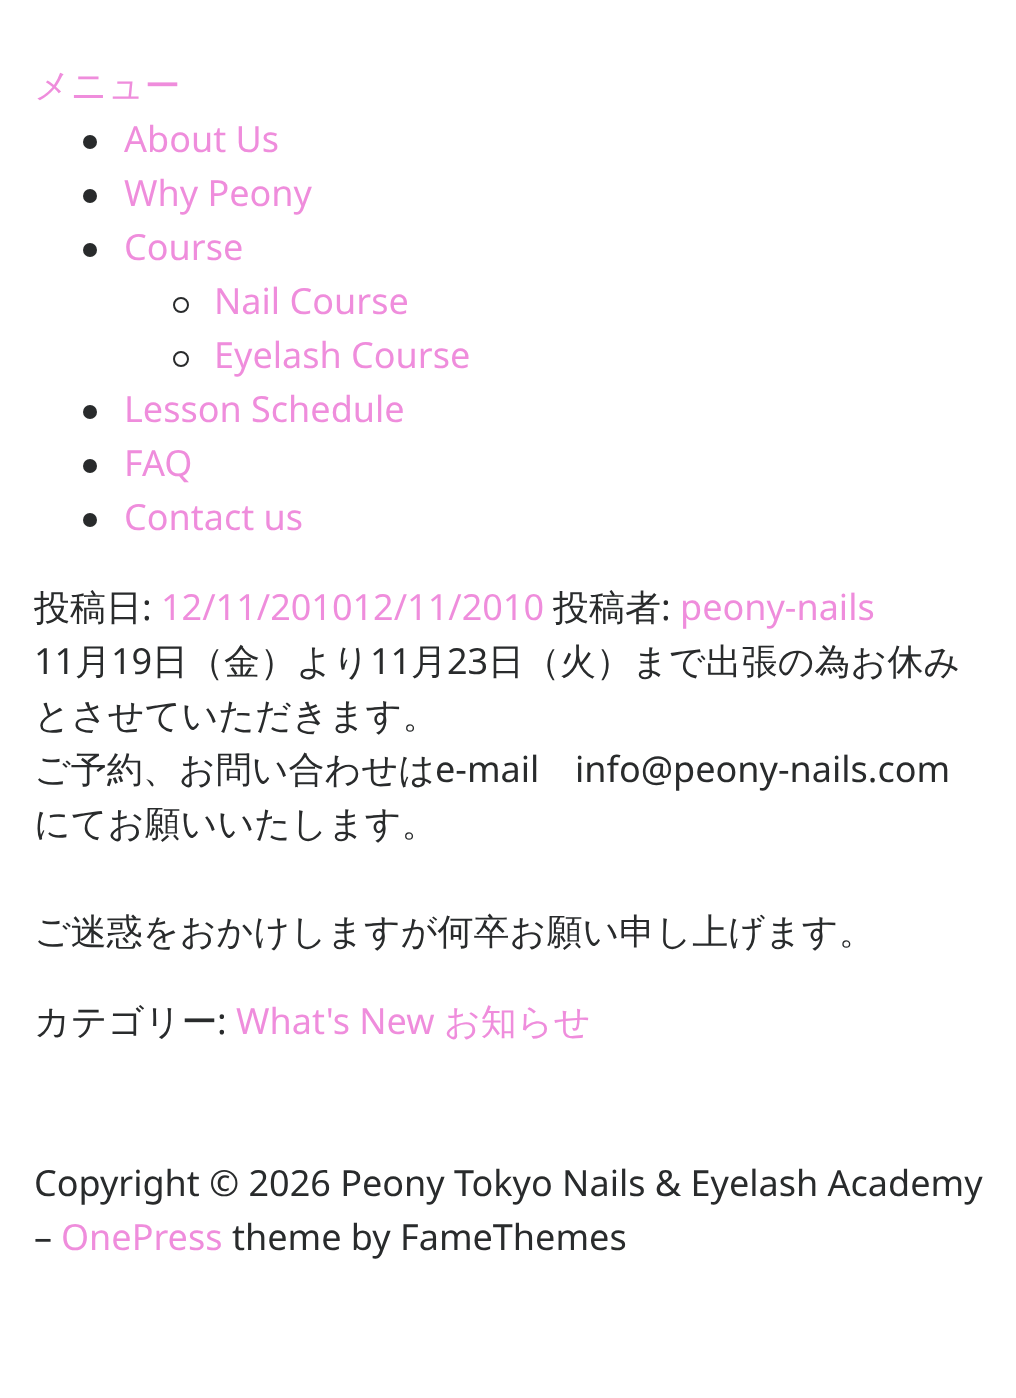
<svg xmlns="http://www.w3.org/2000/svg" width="1016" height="1398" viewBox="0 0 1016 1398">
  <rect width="100%" height="100%" fill="#ffffff"/>
  <text x="34" y="98" font-family="WenQuanYi Zen Hei" font-size="36" font-weight="500" fill="#ef8ddc">メニュー</text>
  <circle cx="90" cy="142" r="7" fill="#292b2c"/>
  <text x="124" y="152" font-family="Noto Sans" font-size="36" fill="#ef8ddc">About Us</text>
  <circle cx="90" cy="196" r="7" fill="#292b2c"/>
  <text x="124" y="206" font-family="Noto Sans" font-size="36" fill="#ef8ddc">Why Peony</text>
  <circle cx="90" cy="250" r="7" fill="#292b2c"/>
  <text x="124" y="260" font-family="Noto Sans" font-size="36" fill="#ef8ddc">Course</text>
  <circle cx="181" cy="305" r="7" fill="none" stroke="#292b2c" stroke-width="2"/>
  <text x="214" y="314" font-family="Noto Sans" font-size="36" fill="#ef8ddc">Nail Course</text>
  <circle cx="181" cy="359" r="7" fill="none" stroke="#292b2c" stroke-width="2"/>
  <text x="214" y="368" font-family="Noto Sans" font-size="36" fill="#ef8ddc">Eyelash Course</text>
  <circle cx="90" cy="412" r="7" fill="#292b2c"/>
  <text x="124" y="422" font-family="Noto Sans" font-size="36" fill="#ef8ddc">Lesson Schedule</text>
  <circle cx="90" cy="466" r="7" fill="#292b2c"/>
  <text x="124" y="476" font-family="Noto Sans" font-size="36" fill="#ef8ddc">FAQ</text>
  <circle cx="90" cy="520" r="7" fill="#292b2c"/>
  <text x="124" y="530" font-family="Noto Sans" font-size="36" fill="#ef8ddc">Contact us</text>
  <text x="34" y="620" font-family="WenQuanYi Zen Hei" font-size="36" font-weight="500" fill="#292b2c">投稿日</text>
  <text x="142" y="620" font-family="Noto Sans" font-size="36" fill="#292b2c">:</text>
  <text x="161" y="620" font-family="Noto Sans" font-size="36" fill="#ef8ddc">12/11/201012/11/2010</text>
  <text x="553" y="620" font-family="WenQuanYi Zen Hei" font-size="36" font-weight="500" fill="#292b2c">投稿者</text>
  <text x="661" y="620" font-family="Noto Sans" font-size="36" fill="#292b2c">:</text>
  <text x="680" y="620" font-family="Noto Sans" font-size="36" fill="#ef8ddc">peony-nails</text>
  <text x="34" y="674" font-family="Noto Sans" font-size="36" fill="#292b2c">11</text>
  <text x="75" y="674" font-family="WenQuanYi Zen Hei" font-size="36" font-weight="500" fill="#292b2c">月</text>
  <text x="111" y="674" font-family="Noto Sans" font-size="36" fill="#292b2c">19</text>
  <text x="152" y="674" font-family="WenQuanYi Zen Hei" font-size="36" font-weight="500" fill="#292b2c">日（金）より</text>
  <text x="370" y="674" font-family="Noto Sans" font-size="36" fill="#292b2c">11</text>
  <text x="411" y="674" font-family="WenQuanYi Zen Hei" font-size="36" font-weight="500" fill="#292b2c">月</text>
  <text x="447" y="674" font-family="Noto Sans" font-size="36" fill="#292b2c">23</text>
  <text x="488" y="674" font-family="WenQuanYi Zen Hei" font-size="36" font-weight="500" fill="#292b2c">日（火）まで出張の為お休み</text>
  <text x="34" y="728" font-family="WenQuanYi Zen Hei" font-size="36" font-weight="500" fill="#292b2c">とさせていただきます。</text>
  <text x="34" y="782" font-family="WenQuanYi Zen Hei" font-size="36" font-weight="500" fill="#292b2c">ご予約、お問い合わせは</text>
  <text x="435" y="782" font-family="Noto Sans" font-size="36" fill="#292b2c">e-mail</text>
  <text x="575" y="782" font-family="Noto Sans" font-size="36" fill="#292b2c">info@peony-nails.com</text>
  <text x="34" y="836" font-family="WenQuanYi Zen Hei" font-size="36" font-weight="500" fill="#292b2c">にてお願いいたします。</text>
  <text x="34" y="944" font-family="WenQuanYi Zen Hei" font-size="36" font-weight="500" fill="#292b2c">ご迷惑をおかけしますが何卒お願い申し上げます。</text>
  <text x="34" y="1034" font-family="WenQuanYi Zen Hei" font-size="36" font-weight="500" fill="#292b2c">カテゴリー</text>
  <text x="217" y="1034" font-family="Noto Sans" font-size="36" fill="#292b2c">:</text>
  <text x="236" y="1034" font-family="Noto Sans" font-size="36" fill="#ef8ddc">What's New</text>
  <text x="444" y="1034" font-family="WenQuanYi Zen Hei" font-size="36" font-weight="500" fill="#ef8ddc">お知らせ</text>
  <text x="34" y="1196" font-family="Noto Sans" font-size="36" fill="#292b2c">Copyright © 2026 Peony Tokyo Nails &amp; Eyelash Academy</text>
  <text x="34" y="1250" font-family="Noto Sans" font-size="36" fill="#292b2c">–</text>
  <text x="61" y="1250" font-family="Noto Sans" font-size="36" fill="#ef8ddc">OnePress</text>
  <text x="232" y="1250" font-family="Noto Sans" font-size="36" fill="#292b2c">theme by FameThemes</text>
</svg>
